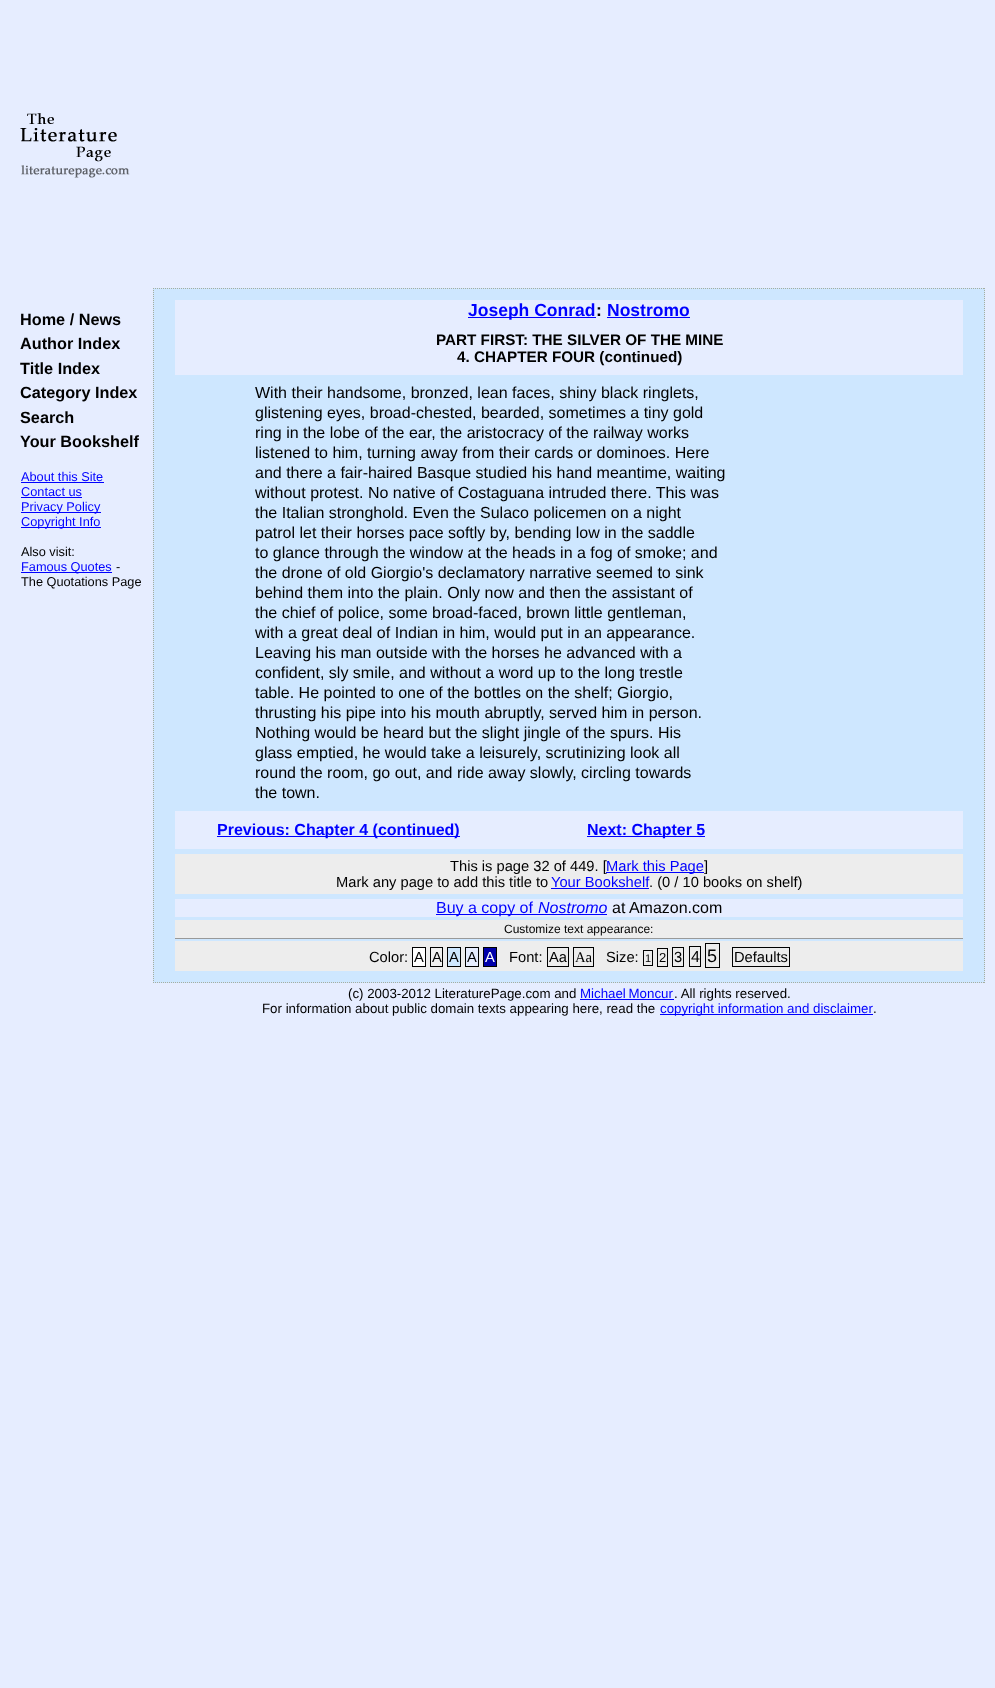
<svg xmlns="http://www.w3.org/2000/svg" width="995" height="1688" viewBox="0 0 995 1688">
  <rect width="100%" height="100%" fill="#e6edff"/>
  <image x="20" y="113" width="110" height="65" href="img1.png"/>
  <text x="20" y="325" font-family="Liberation Sans" font-size="16.25" font-weight="bold" fill="#000000">Home / News</text>
  <text x="20" y="349" font-family="Liberation Sans" font-size="16.25" font-weight="bold" fill="#000000">Author Index</text>
  <text x="20" y="374" font-family="Liberation Sans" font-size="16.25" font-weight="bold" fill="#000000">Title Index</text>
  <text x="20" y="398" font-family="Liberation Sans" font-size="16.25" font-weight="bold" fill="#000000">Category Index</text>
  <text x="20" y="423" font-family="Liberation Sans" font-size="16.25" font-weight="bold" fill="#000000">Search</text>
  <text x="20" y="447" font-family="Liberation Sans" font-size="16.25" font-weight="bold" fill="#000000">Your Bookshelf</text>
  <text x="21" y="481" font-family="Liberation Sans" font-size="12.75" fill="#0000ff">About this Site</text>
  <rect x="21" y="482" width="83" height="1" fill="#0000ff"/>
  <text x="21" y="496" font-family="Liberation Sans" font-size="12.75" fill="#0000ff">Contact us</text>
  <rect x="21" y="497" width="61" height="1" fill="#0000ff"/>
  <rect x="21" y="512" width="80" height="1" fill="#0000ff"/>
  <text x="21" y="511" font-family="Liberation Sans" font-size="12.75" fill="#0000ff">Privacy Policy</text>
  <rect x="21" y="527" width="80" height="1" fill="#0000ff"/>
  <text x="21" y="526" font-family="Liberation Sans" font-size="12.75" fill="#0000ff">Copyright Info</text>
  <text x="21" y="556" font-family="Liberation Sans" font-size="12.75" fill="#000000">Also visit:</text>
  <rect x="21" y="572" width="91" height="1" fill="#0000ff"/>
  <text x="21" y="571" font-family="Liberation Sans" font-size="12.75" fill="#0000ff">Famous Quotes</text>
  <text x="116" y="571" font-family="Liberation Sans" font-size="12.75" fill="#000000">-</text>
  <text x="21" y="586" font-family="Liberation Sans" font-size="12.75" fill="#000000">The Quotations Page</text>
  <rect x="153" y="288" width="832" height="695" fill="#cee7ff"/>
  <path d="M153 288.5H985" fill="none" stroke="#a6ad9f" stroke-dasharray="1 1"/>
  <path d="M984.5 288V983" fill="none" stroke="#a6ad9f" stroke-dasharray="1 1"/>
  <path d="M153 982.5H985" fill="none" stroke="#a6ad9f" stroke-dasharray="1 1"/>
  <path d="M153.5 288V983" fill="none" stroke="#a6ad9f" stroke-dasharray="1 1"/>
  <rect x="175" y="300" width="788" height="75" fill="#e6edff"/>
  <rect x="468" y="317" width="128" height="1" fill="#0000ff"/>
  <text x="468" y="316" font-family="Liberation Sans" font-size="17.5" font-weight="bold" fill="#0000ff">Joseph Conrad</text>
  <text x="596" y="316" font-family="Liberation Sans" font-size="17.5" font-weight="bold" fill="#000000">:</text>
  <text x="607" y="316" font-family="Liberation Sans" font-size="17.5" font-weight="bold" fill="#0000ff">Nostromo</text>
  <rect x="607" y="317" width="83" height="1" fill="#0000ff"/>
  <text x="436" y="345" font-family="Liberation Sans" font-size="15.25" font-weight="bold" fill="#000000">PART FIRST: THE SILVER OF THE MINE</text>
  <text x="457" y="362" font-family="Liberation Sans" font-size="15.25" font-weight="bold" fill="#000000">4. CHAPTER FOUR (continued)</text>
  <text x="255" y="398" font-family="Liberation Sans" font-size="16" fill="#000000">With their handsome, bronzed, lean faces, shiny black ringlets,</text>
  <text x="255" y="418" font-family="Liberation Sans" font-size="16" fill="#000000">glistening eyes, broad-chested, bearded, sometimes a tiny gold</text>
  <text x="255" y="438" font-family="Liberation Sans" font-size="16" fill="#000000">ring in the lobe of the ear, the aristocracy of the railway works</text>
  <text x="255" y="458" font-family="Liberation Sans" font-size="16" fill="#000000">listened to him, turning away from their cards or dominoes. Here</text>
  <text x="255" y="478" font-family="Liberation Sans" font-size="16" fill="#000000">and there a fair-haired Basque studied his hand meantime, waiting</text>
  <text x="255" y="498" font-family="Liberation Sans" font-size="16" fill="#000000">without protest. No native of Costaguana intruded there. This was</text>
  <text x="255" y="518" font-family="Liberation Sans" font-size="16" fill="#000000">the Italian stronghold. Even the Sulaco policemen on a night</text>
  <text x="255" y="538" font-family="Liberation Sans" font-size="16" fill="#000000">patrol let their horses pace softly by, bending low in the saddle</text>
  <text x="255" y="558" font-family="Liberation Sans" font-size="16" fill="#000000">to glance through the window at the heads in a fog of smoke; and</text>
  <text x="255" y="578" font-family="Liberation Sans" font-size="16" fill="#000000">the drone of old Giorgio's declamatory narrative seemed to sink</text>
  <text x="255" y="598" font-family="Liberation Sans" font-size="16" fill="#000000">behind them into the plain. Only now and then the assistant of</text>
  <text x="255" y="618" font-family="Liberation Sans" font-size="16" fill="#000000">the chief of police, some broad-faced, brown little gentleman,</text>
  <text x="255" y="638" font-family="Liberation Sans" font-size="16" fill="#000000">with a great deal of Indian in him, would put in an appearance.</text>
  <text x="255" y="658" font-family="Liberation Sans" font-size="16" fill="#000000">Leaving his man outside with the horses he advanced with a</text>
  <text x="255" y="678" font-family="Liberation Sans" font-size="16" fill="#000000">confident, sly smile, and without a word up to the long trestle</text>
  <text x="255" y="698" font-family="Liberation Sans" font-size="16" fill="#000000">table. He pointed to one of the bottles on the shelf; Giorgio,</text>
  <text x="255" y="718" font-family="Liberation Sans" font-size="16" fill="#000000">thrusting his pipe into his mouth abruptly, served him in person.</text>
  <text x="255" y="738" font-family="Liberation Sans" font-size="16" fill="#000000">Nothing would be heard but the slight jingle of the spurs. His</text>
  <text x="255" y="758" font-family="Liberation Sans" font-size="16" fill="#000000">glass emptied, he would take a leisurely, scrutinizing look all</text>
  <text x="255" y="778" font-family="Liberation Sans" font-size="16" fill="#000000">round the room, go out, and ride away slowly, circling towards</text>
  <text x="255" y="798" font-family="Liberation Sans" font-size="16" fill="#000000">the town.</text>
  <rect x="175" y="811" width="788" height="38" fill="#e6edff"/>
  <rect x="217" y="836" width="243" height="1" fill="#0000ff"/>
  <text x="217" y="835" font-family="Liberation Sans" font-size="16" font-weight="bold" fill="#0000ff">Previous: Chapter 4 (continued)</text>
  <rect x="587" y="836" width="118" height="1" fill="#0000ff"/>
  <text x="587" y="835" font-family="Liberation Sans" font-size="16" font-weight="bold" fill="#0000ff">Next: Chapter 5</text>
  <rect x="175" y="854" width="788" height="40" fill="#ededed"/>
  <text x="450" y="871" font-family="Liberation Sans" font-size="14.7" fill="#000000">This is page 32 of 449. [</text>
  <rect x="606" y="872" width="98" height="1" fill="#0000ff"/>
  <text x="606" y="871" font-family="Liberation Sans" font-size="14.7" fill="#0000ff">Mark this Page</text>
  <text x="704" y="871" font-family="Liberation Sans" font-size="14.7" fill="#000000">]</text>
  <text x="336" y="887" font-family="Liberation Sans" font-size="14.7" fill="#000000">Mark any page to add this title to</text>
  <text x="551" y="887" font-family="Liberation Sans" font-size="14.7" fill="#0000ff">Your Bookshelf</text>
  <rect x="551" y="888" width="98" height="1" fill="#0000ff"/>
  <text x="649" y="887" font-family="Liberation Sans" font-size="14.7" fill="#000000">. (0 / 10 books on shelf)</text>
  <rect x="175" y="899" width="788" height="18" fill="#e6edff"/>
  <rect x="436" y="914" width="171" height="1" fill="#0000ff"/>
  <text x="436" y="913" font-family="Liberation Sans" font-size="16" fill="#0000ff">Buy a copy of</text>
  <text x="538" y="913" font-family="Liberation Sans" font-size="16" font-style="italic" fill="#0000ff">Nostromo</text>
  <text x="612" y="913" font-family="Liberation Sans" font-size="16" fill="#000000">at Amazon.com</text>
  <rect x="175" y="920" width="788" height="18" fill="#ededed"/>
  <rect x="175" y="938" width="788" height="1" fill="#999999"/>
  <text x="504" y="933" font-family="Liberation Sans" font-size="12" fill="#000000">Customize text appearance:</text>
  <rect x="175" y="941" width="788" height="30" fill="#ededed"/>
  <text x="369" y="962" font-family="Liberation Sans" font-size="14.7" fill="#000000">Color:</text>
  <rect x="412.5" y="947.5" width="13" height="19" fill="#ffffff" stroke="#000000"/>
  <text x="414" y="962" font-family="Liberation Sans" font-size="14.7" fill="#000000">A</text>
  <rect x="430.5" y="947.5" width="12" height="19" fill="#f0f0f0" stroke="#000000"/>
  <text x="432" y="962" font-family="Liberation Sans" font-size="14.7" fill="#000000">A</text>
  <rect x="447.5" y="947.5" width="13" height="19" fill="#cee7ff" stroke="#000000"/>
  <text x="449" y="962" font-family="Liberation Sans" font-size="14.7" fill="#000000">A</text>
  <rect x="465.5" y="947.5" width="13" height="19" fill="#e6edff" stroke="#000000"/>
  <text x="467" y="962" font-family="Liberation Sans" font-size="14.7" fill="#000000">A</text>
  <rect x="483.5" y="947.5" width="13" height="19" fill="#0000aa" stroke="#000000"/>
  <text x="485" y="962" font-family="Liberation Sans" font-size="14.7" fill="#ffffff">A</text>
  <text x="509" y="962" font-family="Liberation Sans" font-size="14.7" fill="#000000">Font:</text>
  <rect x="547.5" y="947.5" width="21" height="19" fill="none" stroke="#000000"/>
  <text x="549" y="962" font-family="Liberation Sans" font-size="14.7" fill="#000000">Aa</text>
  <rect x="573.5" y="947.5" width="20" height="19" fill="none" stroke="#000000"/>
  <text x="575" y="962" font-family="Liberation Serif" font-size="14.7" fill="#000000">Aa</text>
  <text x="606" y="962" font-family="Liberation Sans" font-size="14.7" fill="#000000">Size:</text>
  <rect x="643.5" y="950.5" width="9" height="15" fill="none" stroke="#000000"/>
  <text x="645" y="962" font-family="Liberation Sans" font-size="11" fill="#000000">1</text>
  <rect x="657.5" y="948.5" width="10" height="18" fill="none" stroke="#000000"/>
  <text x="659" y="962" font-family="Liberation Sans" font-size="13" fill="#000000">2</text>
  <rect x="672.5" y="947.5" width="11" height="19" fill="none" stroke="#000000"/>
  <text x="674" y="962" font-family="Liberation Sans" font-size="14.7" fill="#000000">3</text>
  <rect x="689.5" y="946.5" width="11" height="20" fill="none" stroke="#000000"/>
  <text x="691" y="962" font-family="Liberation Sans" font-size="16" fill="#000000">4</text>
  <rect x="705.5" y="943.5" width="14" height="24" fill="none" stroke="#000000"/>
  <text x="707" y="962" font-family="Liberation Sans" font-size="18" fill="#000000">5</text>
  <rect x="732.5" y="947.5" width="57" height="19" fill="none" stroke="#000000"/>
  <text x="734" y="962" font-family="Liberation Sans" font-size="14.7" fill="#000000">Defaults</text>
  <text x="348" y="998" font-family="Liberation Sans" font-size="13.3" fill="#000000">(c) 2003-2012 LiteraturePage.com and</text>
  <text x="580" y="998" word-spacing="-1" font-family="Liberation Sans" font-size="13.3" fill="#0000ff">Michael Moncur</text>
  <text x="674" y="998" font-family="Liberation Sans" font-size="13.3" fill="#000000">. All rights reserved.</text>
  <rect x="580" y="999" width="94" height="1" fill="#0000ff"/>
  <text x="262" y="1013" font-family="Liberation Sans" font-size="13.3" fill="#000000">For information about public domain texts appearing here, read the</text>
  <rect x="660" y="1014" width="213" height="1" fill="#0000ff"/>
  <text x="660" y="1013" font-family="Liberation Sans" font-size="13.3" fill="#0000ff">copyright information and disclaimer</text>
  <text x="873" y="1013" font-family="Liberation Sans" font-size="13.3" fill="#000000">.</text>
</svg>
